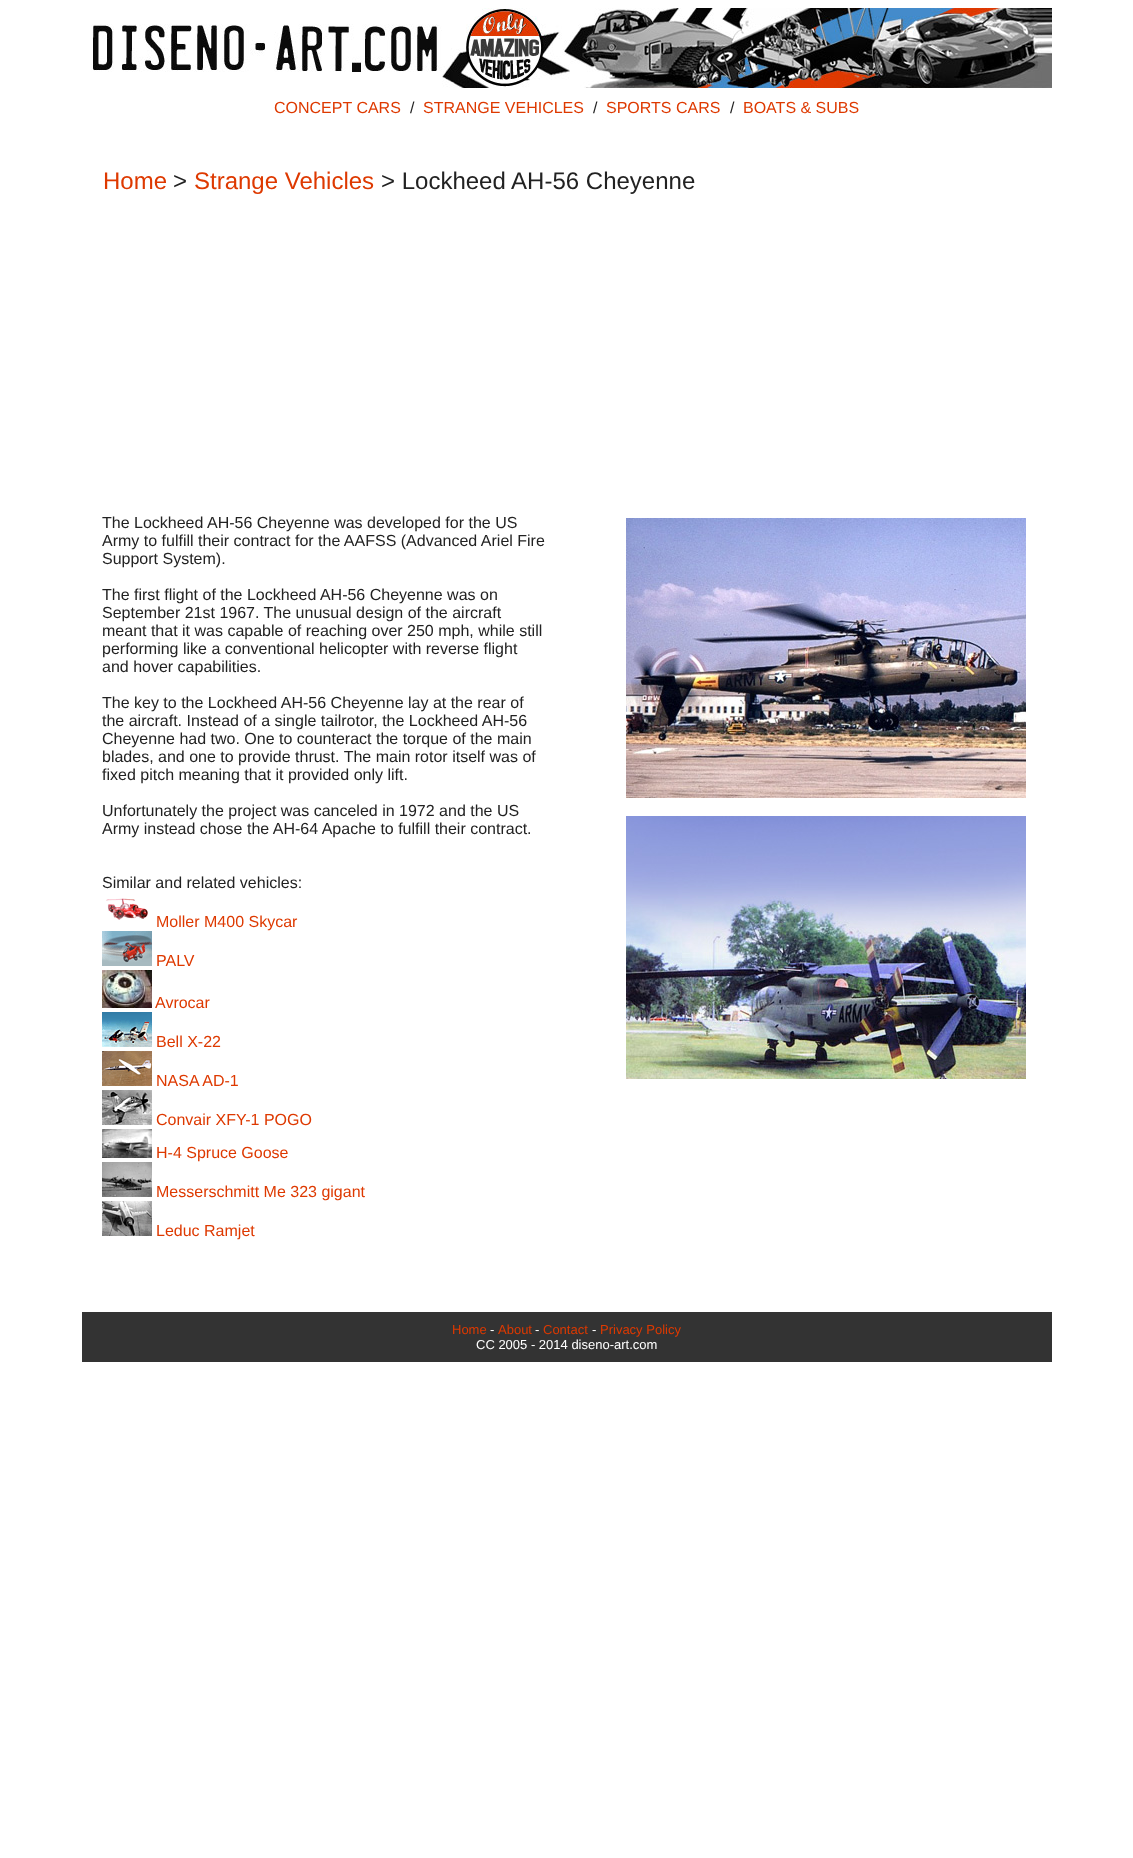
<svg xmlns="http://www.w3.org/2000/svg" width="1133" height="1858" viewBox="0 0 1133 1858">
  <rect width="100%" height="100%" fill="#ffffff"/>
  <image x="91" y="8" width="961" height="80" href="img1.png"/>
  <text x="274" y="113" font-family="Liberation Sans" font-size="16" fill="#de3900">CONCEPT CARS</text>
  <text x="410" y="113" font-family="Liberation Sans" font-size="16" fill="#222222">/</text>
  <text x="423" y="113" font-family="Liberation Sans" font-size="16" fill="#de3900">STRANGE VEHICLES</text>
  <text x="593" y="113" font-family="Liberation Sans" font-size="16" fill="#222222">/</text>
  <text x="606" y="113" font-family="Liberation Sans" font-size="16" fill="#de3900">SPORTS CARS</text>
  <text x="730" y="113" font-family="Liberation Sans" font-size="16" fill="#222222">/</text>
  <text x="743" y="113" font-family="Liberation Sans" font-size="16" fill="#de3900">BOATS &amp; SUBS</text>
  <text x="103" y="189" font-family="Liberation Sans" font-size="24" fill="#de3900">Home</text>
  <text x="173" y="189" font-family="Liberation Sans" font-size="24" fill="#222222">&gt;</text>
  <text x="194" y="189" font-family="Liberation Sans" font-size="24" fill="#de3900">Strange Vehicles</text>
  <text x="381" y="189" font-family="Liberation Sans" font-size="24" fill="#222222">&gt; Lockheed AH-56 Cheyenne</text>
  <text x="102" y="528" font-family="Liberation Sans" font-size="16" fill="#222222">The Lockheed AH-56 Cheyenne was developed for the US</text>
  <text x="102" y="546" font-family="Liberation Sans" font-size="16" fill="#222222">Army to fulfill their contract for the AAFSS (Advanced Ariel Fire</text>
  <text x="102" y="564" font-family="Liberation Sans" font-size="16" fill="#222222">Support System).</text>
  <text x="102" y="600" font-family="Liberation Sans" font-size="16" fill="#222222">The first flight of the Lockheed AH-56 Cheyenne was on</text>
  <text x="102" y="618" font-family="Liberation Sans" font-size="16" fill="#222222">September 21st 1967. The unusual design of the aircraft</text>
  <text x="102" y="636" font-family="Liberation Sans" font-size="16" fill="#222222">meant that it was capable of reaching over 250 mph, while still</text>
  <text x="102" y="654" font-family="Liberation Sans" font-size="16" fill="#222222">performing like a conventional helicopter with reverse flight</text>
  <text x="102" y="672" font-family="Liberation Sans" font-size="16" fill="#222222">and hover capabilities.</text>
  <text x="102" y="708" font-family="Liberation Sans" font-size="16" fill="#222222">The key to the Lockheed AH-56 Cheyenne lay at the rear of</text>
  <text x="102" y="726" font-family="Liberation Sans" font-size="16" fill="#222222">the aircraft. Instead of a single tailrotor, the Lockheed AH-56</text>
  <text x="102" y="744" font-family="Liberation Sans" font-size="16" fill="#222222">Cheyenne had two. One to counteract the torque of the main</text>
  <text x="102" y="762" font-family="Liberation Sans" font-size="16" fill="#222222">blades, and one to provide thrust. The main rotor itself was of</text>
  <text x="102" y="780" font-family="Liberation Sans" font-size="16" fill="#222222">fixed pitch meaning that it provided only lift.</text>
  <text x="102" y="816" font-family="Liberation Sans" font-size="16" fill="#222222">Unfortunately the project was canceled in 1972 and the US</text>
  <text x="102" y="834" font-family="Liberation Sans" font-size="16" fill="#222222">Army instead chose the AH-64 Apache to fulfill their contract.</text>
  <text x="102" y="888" font-family="Liberation Sans" font-size="16" fill="#222222">Similar and related vehicles:</text>
  <image x="106" y="898" width="42" height="22" href="img2.png"/>
  <text x="156" y="927" font-family="Liberation Sans" font-size="16" fill="#de3900">Moller M400 Skycar</text>
  <image x="102" y="931" width="50" height="35" href="img3.png"/>
  <text x="156" y="966" font-family="Liberation Sans" font-size="16" fill="#de3900">PALV</text>
  <image x="102" y="970" width="50" height="38" href="img4.png"/>
  <text x="155" y="1008" font-family="Liberation Sans" font-size="16" fill="#de3900">Avrocar</text>
  <image x="102" y="1012" width="50" height="35" href="img5.png"/>
  <text x="156" y="1047" font-family="Liberation Sans" font-size="16" fill="#de3900">Bell X-22</text>
  <image x="102" y="1051" width="50" height="35" href="img6.png"/>
  <text x="156" y="1086" font-family="Liberation Sans" font-size="16" fill="#de3900">NASA AD-1</text>
  <image x="102" y="1090" width="50" height="35" href="img7.png"/>
  <text x="156" y="1125" font-family="Liberation Sans" font-size="16" fill="#de3900">Convair XFY-1 POGO</text>
  <image x="102" y="1129" width="50" height="29" href="img8.png"/>
  <text x="156" y="1158" font-family="Liberation Sans" font-size="16" fill="#de3900">H-4 Spruce Goose</text>
  <image x="102" y="1162" width="50" height="35" href="img9.png"/>
  <text x="156" y="1197" font-family="Liberation Sans" font-size="16" fill="#de3900">Messerschmitt Me 323 gigant</text>
  <image x="102" y="1201" width="50" height="35" href="img10.png"/>
  <text x="156" y="1236" font-family="Liberation Sans" font-size="16" fill="#de3900">Leduc Ramjet</text>
  <image x="626" y="518" width="400" height="280" href="img11.png"/>
  <image x="626" y="816" width="400" height="263" href="img12.png"/>
  <rect x="82" y="1312" width="970" height="50" fill="#333333"/>
  <text x="452" y="1334" font-family="Liberation Sans" font-size="13" fill="#de3900">Home</text>
  <text x="490" y="1334" font-family="Liberation Sans" font-size="13" fill="#ffffff">-</text>
  <text x="498" y="1334" font-family="Liberation Sans" font-size="13" fill="#de3900">About</text>
  <text x="535" y="1334" font-family="Liberation Sans" font-size="13" fill="#ffffff">-</text>
  <text x="543" y="1334" font-family="Liberation Sans" font-size="13" fill="#de3900">Contact</text>
  <text x="592" y="1334" font-family="Liberation Sans" font-size="13" fill="#ffffff">-</text>
  <text x="600" y="1334" font-family="Liberation Sans" font-size="13" fill="#de3900">Privacy Policy</text>
  <text x="476" y="1349" font-family="Liberation Sans" font-size="13" fill="#ffffff">CC 2005 - 2014 diseno-art.com</text>
</svg>
